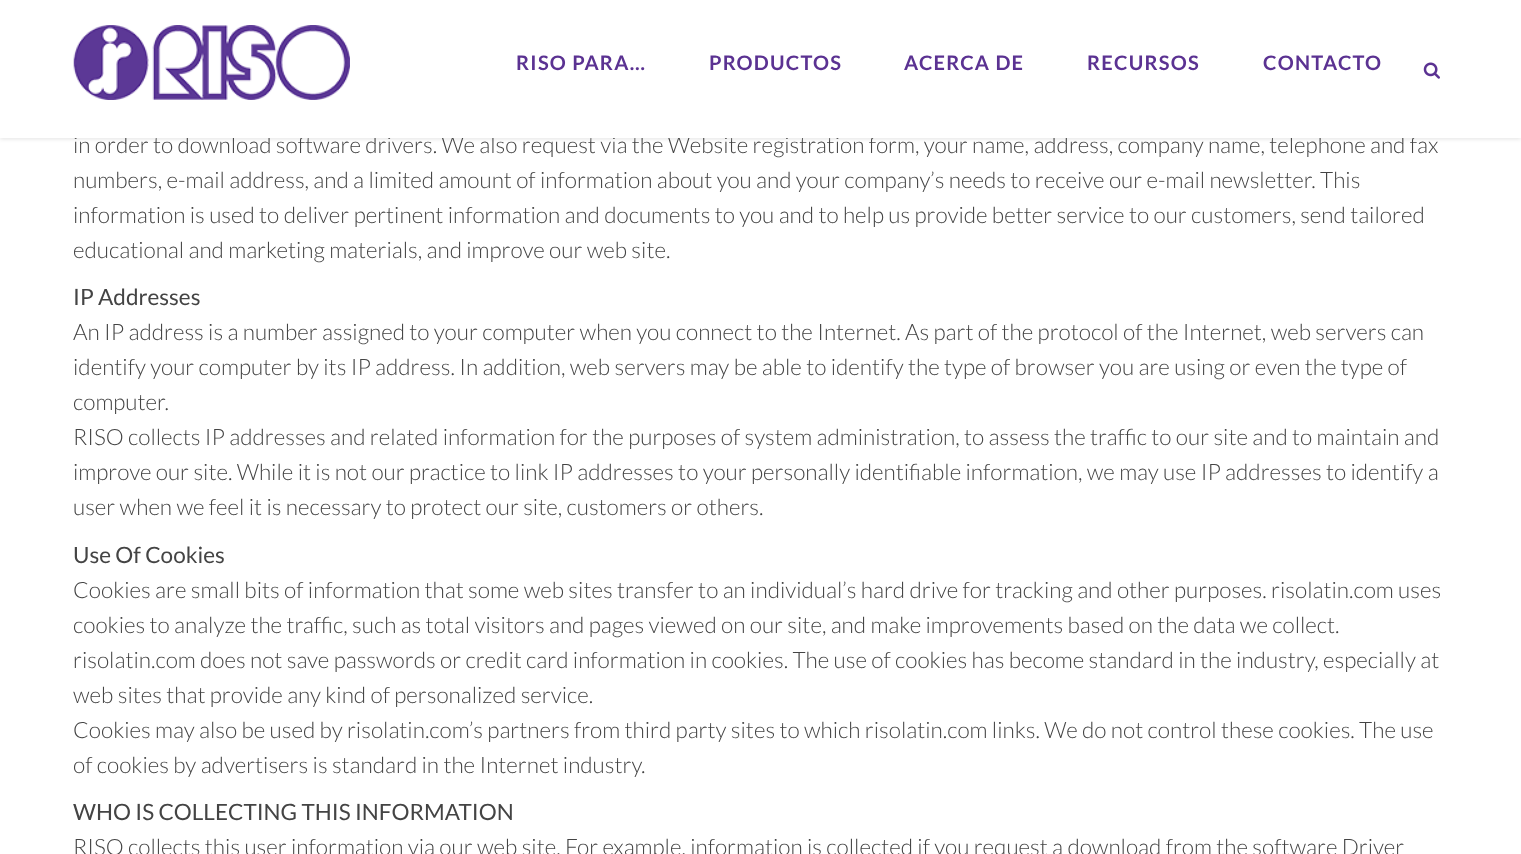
<svg xmlns="http://www.w3.org/2000/svg" width="1521" height="854" viewBox="0 0 1521 854">
  <defs>
    <filter id="blur1" x="-50%" y="-200%" width="200%" height="500%"><feGaussianBlur stdDeviation="2"/></filter>
  </defs>
  <rect width="100%" height="100%" fill="#ffffff"/>
  <rect x="0" y="1" width="1521" height="138" fill="#000000" fill-opacity="0.11" filter="url(#blur1)"/>
  <text x="73" y="153" font-family="Lato" font-size="22.5" font-weight="300" fill="#444444">in order to download software drivers. We also request via the Website registration form, your name, address, company name, telephone and fax</text>
  <rect x="0" y="0" width="1521" height="138" fill="#ffffff"/>
  <image x="73" y="25" width="277" height="75" href="img1.png"/>
  <text x="516" y="70" font-family="Lato" font-size="20" font-weight="bold" letter-spacing="1.25" fill="#5b3292">RISO PARA…</text>
  <text x="709" y="70" font-family="Lato" font-size="20" font-weight="bold" letter-spacing="1.25" fill="#5b3292">PRODUCTOS</text>
  <text x="904" y="70" font-family="Lato" font-size="20" font-weight="bold" letter-spacing="1.25" fill="#5b3292">ACERCA DE</text>
  <text x="1087" y="70" font-family="Lato" font-size="20" font-weight="bold" letter-spacing="1.25" fill="#5b3292">RECURSOS</text>
  <text x="1263" y="70" font-family="Lato" font-size="20" font-weight="bold" letter-spacing="1.25" fill="#5b3292">CONTACTO</text>
  <image x="1423" y="62" width="17" height="17" href="img2.png"/>
  <text x="73" y="188" font-family="Lato" font-size="22.5" font-weight="300" fill="#444444">numbers, e-mail address, and a limited amount of information about you and your company’s needs to receive our e-mail newsletter. This</text>
  <text x="73" y="223" font-family="Lato" font-size="22.5" font-weight="300" fill="#444444">information is used to deliver pertinent information and documents to you and to help us provide better service to our customers, send tailored</text>
  <text x="73" y="258" font-family="Lato" font-size="22.5" font-weight="300" fill="#444444">educational and marketing materials, and improve our web site.</text>
  <text x="73" y="305" font-family="Lato" font-size="22.5" fill="#444444">IP Addresses</text>
  <text x="73" y="340" font-family="Lato" font-size="22.5" font-weight="300" fill="#444444">An IP address is a number assigned to your computer when you connect to the Internet. As part of the protocol of the Internet, web servers can</text>
  <text x="73" y="375" font-family="Lato" font-size="22.5" font-weight="300" fill="#444444">identify your computer by its IP address. In addition, web servers may be able to identify the type of browser you are using or even the type of</text>
  <text x="73" y="410" font-family="Lato" font-size="22.5" font-weight="300" fill="#444444">computer.</text>
  <text x="73" y="445" font-family="Lato" font-size="22.5" font-weight="300" fill="#444444">RISO collects IP addresses and related information for the purposes of system administration, to assess the traffic to our site and to maintain and</text>
  <text x="73" y="480" font-family="Lato" font-size="22.5" font-weight="300" fill="#444444">improve our site. While it is not our practice to link IP addresses to your personally identifiable information, we may use IP addresses to identify a</text>
  <text x="73" y="515" font-family="Lato" font-size="22.5" font-weight="300" fill="#444444">user when we feel it is necessary to protect our site, customers or others.</text>
  <text x="73" y="563" font-family="Lato" font-size="22.5" fill="#444444">Use Of Cookies</text>
  <text x="73" y="598" font-family="Lato" font-size="22.5" font-weight="300" fill="#444444">Cookies are small bits of information that some web sites transfer to an individual’s hard drive for tracking and other purposes. risolatin.com uses</text>
  <text x="73" y="633" font-family="Lato" font-size="22.5" font-weight="300" fill="#444444">cookies to analyze the traffic, such as total visitors and pages viewed on our site, and make improvements based on the data we collect.</text>
  <text x="73" y="668" font-family="Lato" font-size="22.5" font-weight="300" fill="#444444">risolatin.com does not save passwords or credit card information in cookies. The use of cookies has become standard in the industry, especially at</text>
  <text x="73" y="703" font-family="Lato" font-size="22.5" font-weight="300" fill="#444444">web sites that provide any kind of personalized service.</text>
  <text x="73" y="738" font-family="Lato" font-size="22.5" font-weight="300" fill="#444444">Cookies may also be used by risolatin.com’s partners from third party sites to which risolatin.com links. We do not control these cookies. The use</text>
  <text x="73" y="773" font-family="Lato" font-size="22.5" font-weight="300" fill="#444444">of cookies by advertisers is standard in the Internet industry.</text>
  <text x="73" y="820" font-family="Lato" font-size="22.5" fill="#444444">WHO IS COLLECTING THIS INFORMATION</text>
  <text x="73" y="855" font-family="Lato" font-size="22.5" font-weight="300" fill="#444444">RISO collects this user information via our web site. For example, information is collected if you request a download from the software Driver</text>
</svg>
